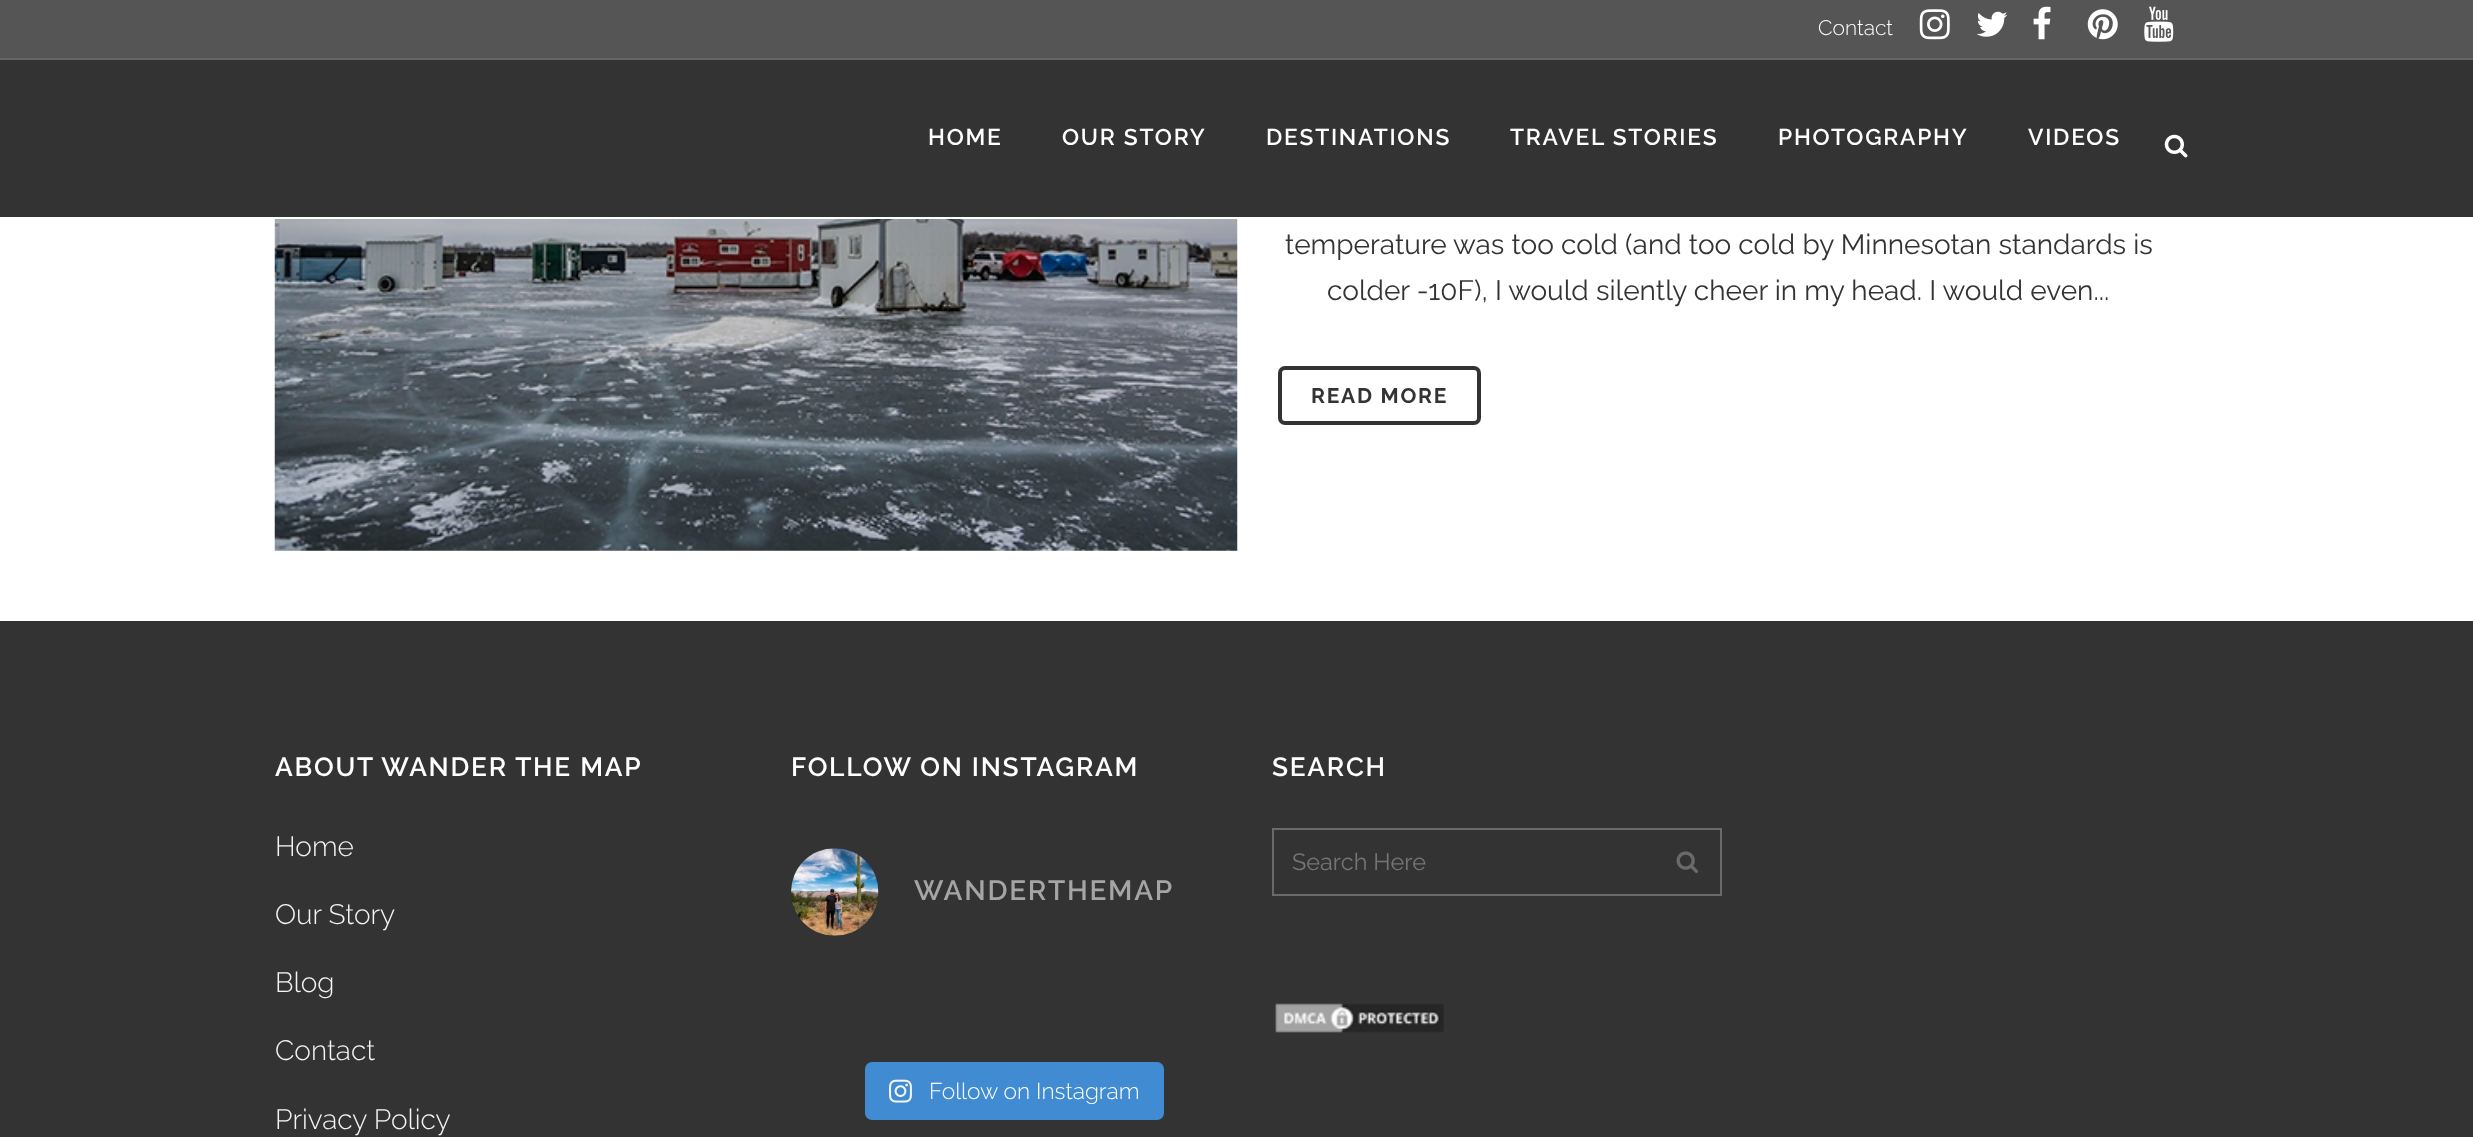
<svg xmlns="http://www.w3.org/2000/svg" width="2473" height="1137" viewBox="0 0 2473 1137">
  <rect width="100%" height="100%" fill="#ffffff"/>
  <rect x="0" y="0" width="2473" height="58" fill="#555555"/>
  <rect x="0" y="58" width="2473" height="2" fill="#666666"/>
  <text x="1818" y="35" font-family="Raleway" font-size="21" font-weight="300" fill="#ffffff">Contact</text>
  <image x="1919" y="9" width="31" height="31" href="img1.png"/>
  <image x="1977" y="11" width="31" height="26" href="img2.png"/>
  <image x="2033" y="6" width="18" height="34" href="img3.png"/>
  <image x="2087" y="9" width="31" height="31" href="img4.png"/>
  <image x="2144" y="6" width="30" height="36" href="img5.png"/>
  <rect x="0" y="60" width="2473" height="157" fill="#333333"/>
  <text x="928" y="145" font-family="Raleway" font-size="22.75" font-weight="600" letter-spacing="1.75" fill="#ffffff">HOME</text>
  <text x="1062" y="145" font-family="Raleway" font-size="22.75" font-weight="600" letter-spacing="1.75" fill="#ffffff">OUR STORY</text>
  <text x="1266" y="145" font-family="Raleway" font-size="22.75" font-weight="600" letter-spacing="1.75" fill="#ffffff">DESTINATIONS</text>
  <text x="1510" y="145" font-family="Raleway" font-size="22.75" font-weight="600" letter-spacing="1.75" fill="#ffffff">TRAVEL STORIES</text>
  <text x="1778" y="145" font-family="Raleway" font-size="22.75" font-weight="600" letter-spacing="1.75" fill="#ffffff">PHOTOGRAPHY</text>
  <text x="2028" y="145" font-family="Raleway" font-size="22.75" font-weight="600" letter-spacing="1.75" fill="#ffffff">VIDEOS</text>
  <image x="2164" y="134" width="24" height="24" href="img6.png"/>
  <image x="274" y="219" width="964" height="332" href="img7.png"/>
  <text x="1285" y="254" font-family="Raleway" font-size="28" fill="#333333">temperature was too cold (and too cold by Minnesotan standards is</text>
  <text x="1327" y="300" font-family="Raleway" font-size="28" fill="#333333">colder -10F), I would silently cheer in my head. I would even...</text>
  <rect x="1280" y="368" width="199" height="55" rx="5" fill="none" stroke="#333333" stroke-width="4"/>
  <text x="1311" y="403" font-family="Raleway" font-size="21" font-weight="bold" letter-spacing="1.75" fill="#333333">READ MORE</text>
  <rect x="0" y="621" width="2473" height="516" fill="#333333"/>
  <text x="275" y="776" font-family="Raleway" font-size="26.25" font-weight="600" letter-spacing="1.75" fill="#ffffff">ABOUT WANDER THE MAP</text>
  <text x="275" y="856" font-family="Raleway" font-size="28" font-weight="300" fill="#f4f4f4">Home</text>
  <text x="275" y="924" font-family="Raleway" font-size="28" font-weight="300" fill="#f4f4f4">Our Story</text>
  <text x="275" y="992" font-family="Raleway" font-size="28" font-weight="300" fill="#f4f4f4">Blog</text>
  <text x="275" y="1060" font-family="Raleway" font-size="28" font-weight="300" fill="#f4f4f4">Contact</text>
  <text x="275" y="1129" font-family="Raleway" font-size="28" font-weight="300" fill="#f4f4f4">Privacy Policy</text>
  <text x="791" y="776" font-family="Raleway" font-size="26.25" font-weight="600" letter-spacing="1.75" fill="#ffffff">FOLLOW ON INSTAGRAM</text>
  <image x="791" y="848" width="88" height="88" href="img8.png"/>
  <text x="914" y="900" font-family="Raleway" font-size="28" font-weight="600" letter-spacing="1.75" fill="#a5a5a5">WANDERTHEMAP</text>
  <rect x="865" y="1062" width="299" height="58" rx="7" fill="#408bd1"/>
  <image x="889" y="1079" width="23" height="24" href="img9.png"/>
  <text x="929" y="1099" font-family="Raleway" font-size="22.75" font-weight="300" fill="#ffffff">Follow on Instagram</text>
  <text x="1272" y="776" font-family="Raleway" font-size="26.25" font-weight="600" letter-spacing="1.75" fill="#ffffff">SEARCH</text>
  <rect x="1273" y="829" width="448" height="66" fill="none" stroke="#6a6a6a" stroke-width="2"/>
  <text x="1292" y="870" font-family="Raleway" font-size="23.5" fill="#757575">Search Here</text>
  <image x="1676" y="851" width="23" height="22" href="img10.png"/>
  <image x="1275" y="1003" width="169" height="30" href="img11.png"/>
</svg>
